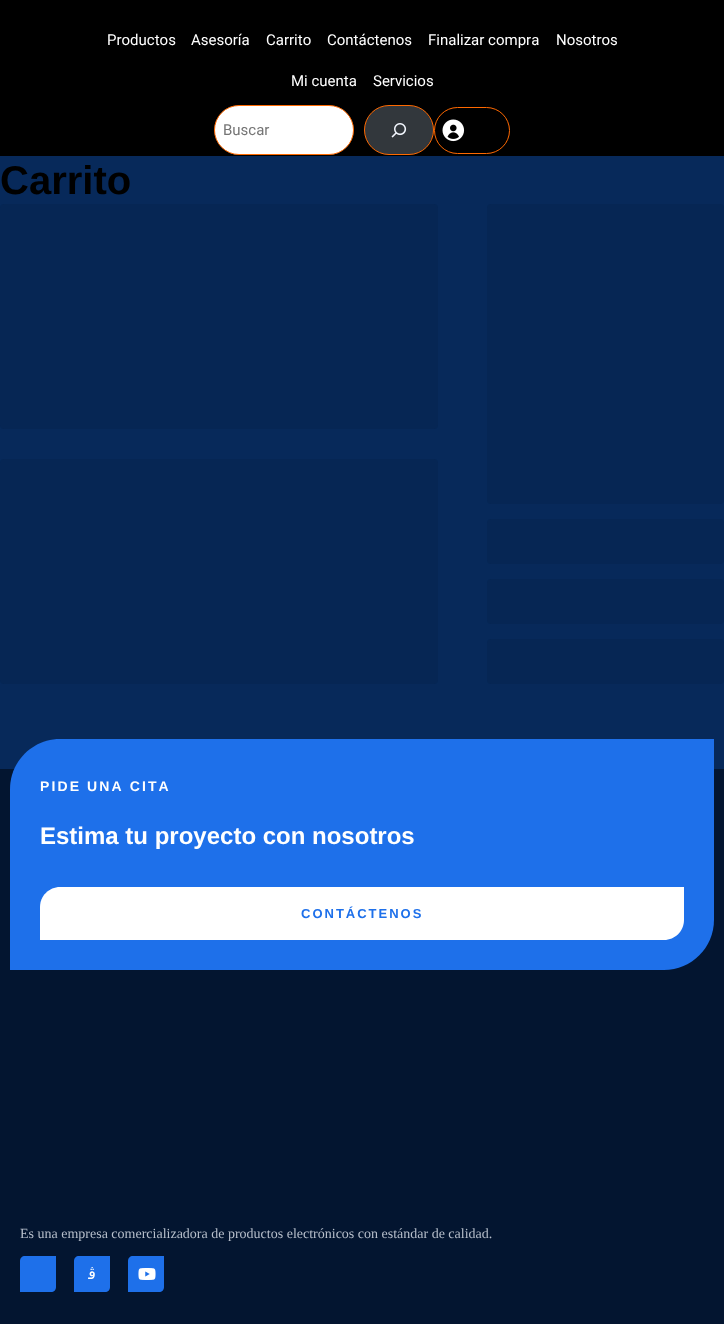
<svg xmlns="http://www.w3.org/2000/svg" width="724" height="1324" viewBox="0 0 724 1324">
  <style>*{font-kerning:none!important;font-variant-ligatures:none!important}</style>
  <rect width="100%" height="100%" fill="#07295a"/>
  <rect x="0" y="0" width="724" height="156" fill="#000000"/>
  <text x="107" y="45" font-family="Roboto" font-size="15" fill="#ffffff">Productos</text>
  <text x="191" y="45" font-family="Roboto" font-size="15" fill="#ffffff">Asesoría</text>
  <text x="266" y="45" font-family="Roboto" font-size="15" fill="#ffffff">Carrito</text>
  <text x="327" y="45" font-family="Roboto" font-size="15" fill="#ffffff">Contáctenos</text>
  <text x="428" y="45" font-family="Roboto" font-size="15" fill="#ffffff">Finalizar compra</text>
  <text x="556" y="45" font-family="Roboto" font-size="15" fill="#ffffff">Nosotros</text>
  <text x="291" y="86" font-family="Roboto" font-size="15" fill="#ffffff">Mi cuenta</text>
  <text x="373" y="86" font-family="Roboto" font-size="15" fill="#ffffff">Servicios</text>
  <rect x="214.5" y="105.5" width="139" height="49" rx="24.5" fill="#ffffff" stroke="#ff6900"/>
  <text x="223" y="135" font-family="Roboto" font-size="15" fill="#757575">Buscar</text>
  <rect x="364.5" y="105.5" width="69" height="49" rx="24.5" fill="#32373c" stroke="#ff6900"/>
  <image x="391" y="123" width="16" height="15" href="img1.png"/>
  <rect x="434.5" y="107.5" width="75" height="46" rx="23" fill="none" stroke="#ff6900"/>
  <image x="442" y="119" width="23" height="23" href="img2.png"/>
  <text x="0" y="194" font-family="Liberation Sans" font-size="40" font-weight="bold" fill="#000000">Carrito</text>
  <rect x="0" y="204" width="438" height="225" rx="4" fill="#062654"/>
  <rect x="0" y="459" width="438" height="225" rx="4" fill="#062654"/>
  <rect x="487" y="204" width="237" height="300" rx="4" fill="#062654"/>
  <rect x="487" y="519" width="237" height="45" rx="4" fill="#062654"/>
  <rect x="487" y="579" width="237" height="45" rx="4" fill="#062654"/>
  <rect x="487" y="639" width="237" height="45" rx="4" fill="#062654"/>
  <rect x="0" y="769" width="724" height="555" fill="#031530"/>
  <path d="M60 739H714V920C714 947.5 691.5 970 664 970H10V789C10 761.5 32.5 739 60 739Z" fill="#1e70ea"/>
  <text x="40" y="791" font-family="Liberation Sans" font-size="14" font-weight="bold" letter-spacing="2.1" fill="#ffffff">PIDE UNA CITA</text>
  <text x="40" y="844" font-family="Liberation Sans" font-size="24" font-weight="bold" fill="#ffffff">Estima tu proyecto con nosotros</text>
  <path d="M60 887H684V920C684 931 675 940 664 940H40V907C40 896 49 887 60 887Z" fill="#ffffff"/>
  <text x="301" y="918" font-family="Liberation Sans" font-size="13" font-weight="bold" letter-spacing="2" fill="#1e70ea">CONTÁCTENOS</text>
  <text x="20" y="1238" font-family="Liberation Serif" font-size="14" fill="#b7bfcb">Es una empresa comercializadora de productos electrónicos con estándar de calidad.</text>
  <path d="M25 1256H56V1287C56 1290 54 1292 51 1292H20V1261C20 1258 22 1256 25 1256Z" fill="#1e70ea"/>
  <path d="M79 1256H110V1287C110 1290 108 1292 105 1292H74V1261C74 1258 76 1256 79 1256Z" fill="#1e70ea"/>
  <text x="96" y="1279" font-family="DejaVu Sans" font-size="16" direction="rtl" fill="#ffffff">ﭬ</text>
  <path d="M133 1256H164V1287C164 1290 162 1292 159 1292H128V1261C128 1258 130 1256 133 1256Z" fill="#1e70ea"/>
  <image x="138" y="1268" width="18" height="12" href="img3.png"/>
</svg>
